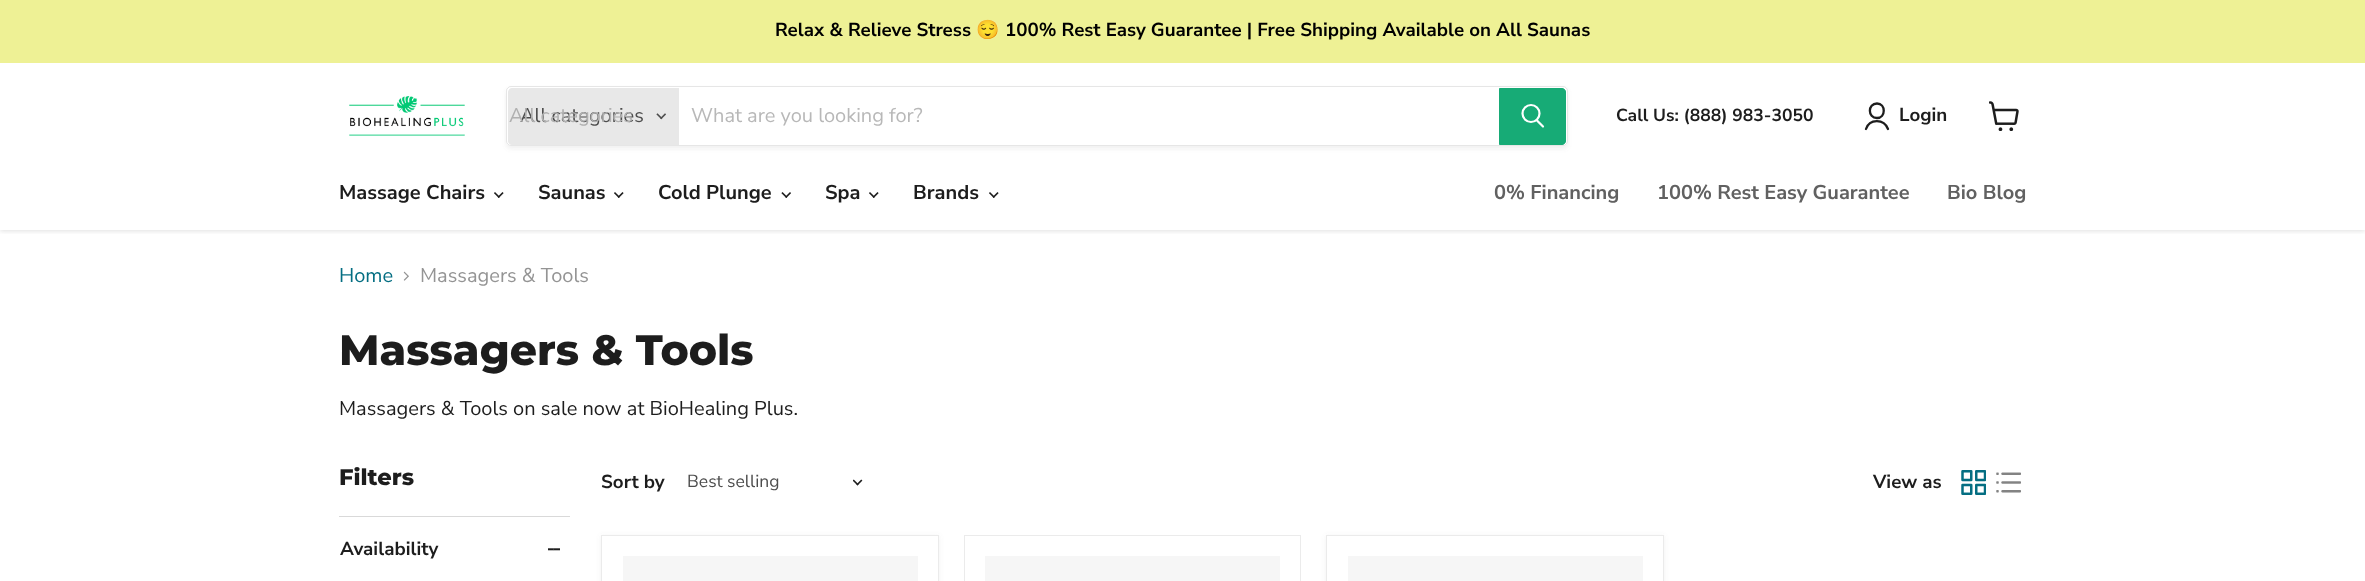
<svg xmlns="http://www.w3.org/2000/svg" width="2365" height="581" viewBox="0 0 2365 581">
  <defs>
    <clipPath id="clip1"><rect x="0" y="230" width="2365" height="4"/></clipPath>
    <filter id="blur1" x="-50%" y="-200%" width="200%" height="500%"><feGaussianBlur stdDeviation="2.5"/></filter>
    <clipPath id="clip2"><path d="M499 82H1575V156H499ZM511 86H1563C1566 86 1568 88 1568 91V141C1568 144 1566 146 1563 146H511C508 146 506 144 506 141V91C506 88 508 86 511 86Z" clip-rule="evenodd"/></clipPath>
    <filter id="blur2" x="-50%" y="-200%" width="200%" height="500%"><feGaussianBlur stdDeviation="2"/></filter>
  </defs>
  <rect width="100%" height="100%" fill="#ffffff"/>
  <g clip-path="url(#clip1)">
    <rect x="0" y="64" width="2365" height="167" fill="#808080" fill-opacity="0.25" filter="url(#blur1)"/>
  </g>
  <rect x="0" y="0" width="2365" height="63" fill="#eef195"/>
  <text x="775" y="36" font-family="Nunito Sans" font-size="18.75" font-weight="bold" fill="#000000">Relax &amp; Relieve Stress</text>
  <text x="976" y="36" font-family="Noto Color Emoji" font-size="18.75" font-weight="bold" fill="#000000">😌</text>
  <text x="1005" y="36" font-family="Nunito Sans" font-size="18.75" font-weight="bold" fill="#000000">100% Rest Easy Guarantee | Free Shipping Available on All Saunas</text>
  <image x="349" y="96" width="116" height="40" href="img1.png"/>
  <g clip-path="url(#clip2)">
    <rect x="506" y="89" width="1062" height="60" rx="5" fill="#808080" fill-opacity="0.11" filter="url(#blur2)"/>
  </g>
  <rect x="506.5" y="86.5" width="1061" height="59" rx="4.5" fill="none" stroke="#808080" stroke-opacity="0.2"/>
  <path d="M512 88H679V145H512C510 145 508 143 508 141V92C508 90 510 88 512 88Z" fill="#e8e8e8"/>
  <text x="520" y="122" font-family="Nunito Sans" font-size="20" fill="#4d4d4d">All categories</text>
  <text x="509" y="122" font-family="Nunito Sans" font-size="20" fill="#b0b0b0">All categories</text>
  <image x="656" y="113" width="10" height="7" href="img2.png"/>
  <text x="691" y="122" font-family="Nunito Sans" font-size="20" fill="#b8b8b8">What are you looking for?</text>
  <path d="M1499.5 88.5H1562C1564 88.5 1565.5 90 1565.5 92V141C1565.5 143 1564 144.5 1562 144.5H1499.5Z" fill="#17ab76" stroke="#17ab76"/>
  <path d="M1543 126.5L1537 120.5" fill="none" stroke="#ffffff" stroke-width="2.2" stroke-linecap="round"/>
  <circle cx="1531" cy="113.5" r="8.5" fill="none" stroke="#ffffff" stroke-width="2.2"/>
  <text x="1616" y="121" font-family="Nunito Sans" font-size="17.5" font-weight="bold" fill="#1d1d1d">Call Us: (888) 983-3050</text>
  <path d="M1877 118C1886 118 1886 103.5 1877 103.5C1867.5 103.5 1867.5 118 1877 118ZM1888 129C1884 118.5 1869.5 118.5 1866 129" fill="none" stroke="#1d1d1d" stroke-width="2.3" stroke-linecap="round" stroke-linejoin="round"/>
  <text x="1899" y="121" font-family="Nunito Sans" font-size="18.75" font-weight="bold" fill="#1d1d1d">Login</text>
  <image x="1989" y="101" width="30" height="30" href="img3.png"/>
  <text x="339" y="199" font-family="Nunito Sans" font-size="20" font-weight="bold" fill="#1d1d1d">Massage Chairs</text>
  <image x="494" y="192" width="10" height="6" href="img4.png"/>
  <text x="538" y="199" font-family="Nunito Sans" font-size="20" font-weight="bold" fill="#1d1d1d">Saunas</text>
  <image x="614" y="192" width="10" height="6" href="img4.png"/>
  <text x="658" y="199" font-family="Nunito Sans" font-size="20" font-weight="bold" fill="#1d1d1d">Cold Plunge</text>
  <image x="781" y="192" width="10" height="6" href="img5.png"/>
  <text x="825" y="199" font-family="Nunito Sans" font-size="20" font-weight="bold" fill="#1d1d1d">Spa</text>
  <image x="869" y="192" width="10" height="6" href="img4.png"/>
  <text x="913" y="199" font-family="Nunito Sans" font-size="20" font-weight="bold" fill="#1d1d1d">Brands</text>
  <image x="989" y="192" width="10" height="6" href="img4.png"/>
  <text x="1494" y="199" font-family="Nunito Sans" font-size="20" font-weight="bold" fill="#616161">0% Financing</text>
  <text x="1657" y="199" font-family="Nunito Sans" font-size="20" font-weight="bold" fill="#616161">100% Rest Easy Guarantee</text>
  <text x="1947" y="199" font-family="Nunito Sans" font-size="20" font-weight="bold" fill="#616161">Bio Blog</text>
  <text x="339" y="282" font-family="Nunito Sans" font-size="20" fill="#046e82">Home</text>
  <image x="403" y="271" width="6" height="10" href="img6.png"/>
  <text x="420" y="282" font-family="Nunito Sans" font-size="20" fill="#949494">Massagers &amp; Tools</text>
  <text x="339" y="365" font-family="Montserrat" font-size="42.5" font-weight="800" fill="#1d1d1d">Massagers &amp; Tools</text>
  <text x="339" y="415" font-family="Nunito Sans" font-size="20" fill="#1d1d1d">Massagers &amp; Tools on sale now at BioHealing Plus.</text>
  <text x="339" y="485" font-family="Montserrat" font-size="22.5" font-weight="800" fill="#1d1d1d">Filters</text>
  <rect x="339" y="516" width="231" height="1" fill="#d9d9d9"/>
  <text x="340" y="555" font-family="Nunito Sans" font-size="18.75" font-weight="bold" fill="#1d1d1d">Availability</text>
  <image x="548" y="548" width="12" height="3" href="img7.png"/>
  <text x="601" y="488" font-family="Nunito Sans" font-size="18.75" font-weight="bold" fill="#1d1d1d">Sort by</text>
  <text x="687" y="487" font-family="Nunito Sans" font-size="17.5" fill="#4d4d4d">Best selling</text>
  <image x="853" y="479" width="10" height="7" href="img8.png"/>
  <text x="1873" y="488" font-family="Nunito Sans" font-size="18.75" font-weight="bold" fill="#1d1d1d">View as</text>
  <image x="1961" y="470" width="25" height="25" href="img9.png"/>
  <image x="1996" y="472" width="25" height="21" href="img10.png"/>
  <rect x="601" y="536" width="338" height="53" fill="#808080" fill-opacity="0.11" filter="url(#blur1)"/>
  <rect x="601.5" y="535.5" width="337" height="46" fill="#ffffff" stroke="#ebebeb"/>
  <rect x="623" y="556" width="295" height="25" fill="#f6f6f6"/>
  <rect x="964.5" y="535.5" width="336" height="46" fill="none" stroke="#ebebeb"/>
  <rect x="985" y="556" width="295" height="25" fill="#f6f6f6"/>
  <rect x="1326" y="536" width="338" height="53" fill="#808080" fill-opacity="0.11" filter="url(#blur1)"/>
  <rect x="1326.5" y="535.5" width="337" height="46" fill="#ffffff" stroke="#ebebeb"/>
  <rect x="1348" y="556" width="295" height="25" fill="#f6f6f6"/>
</svg>
